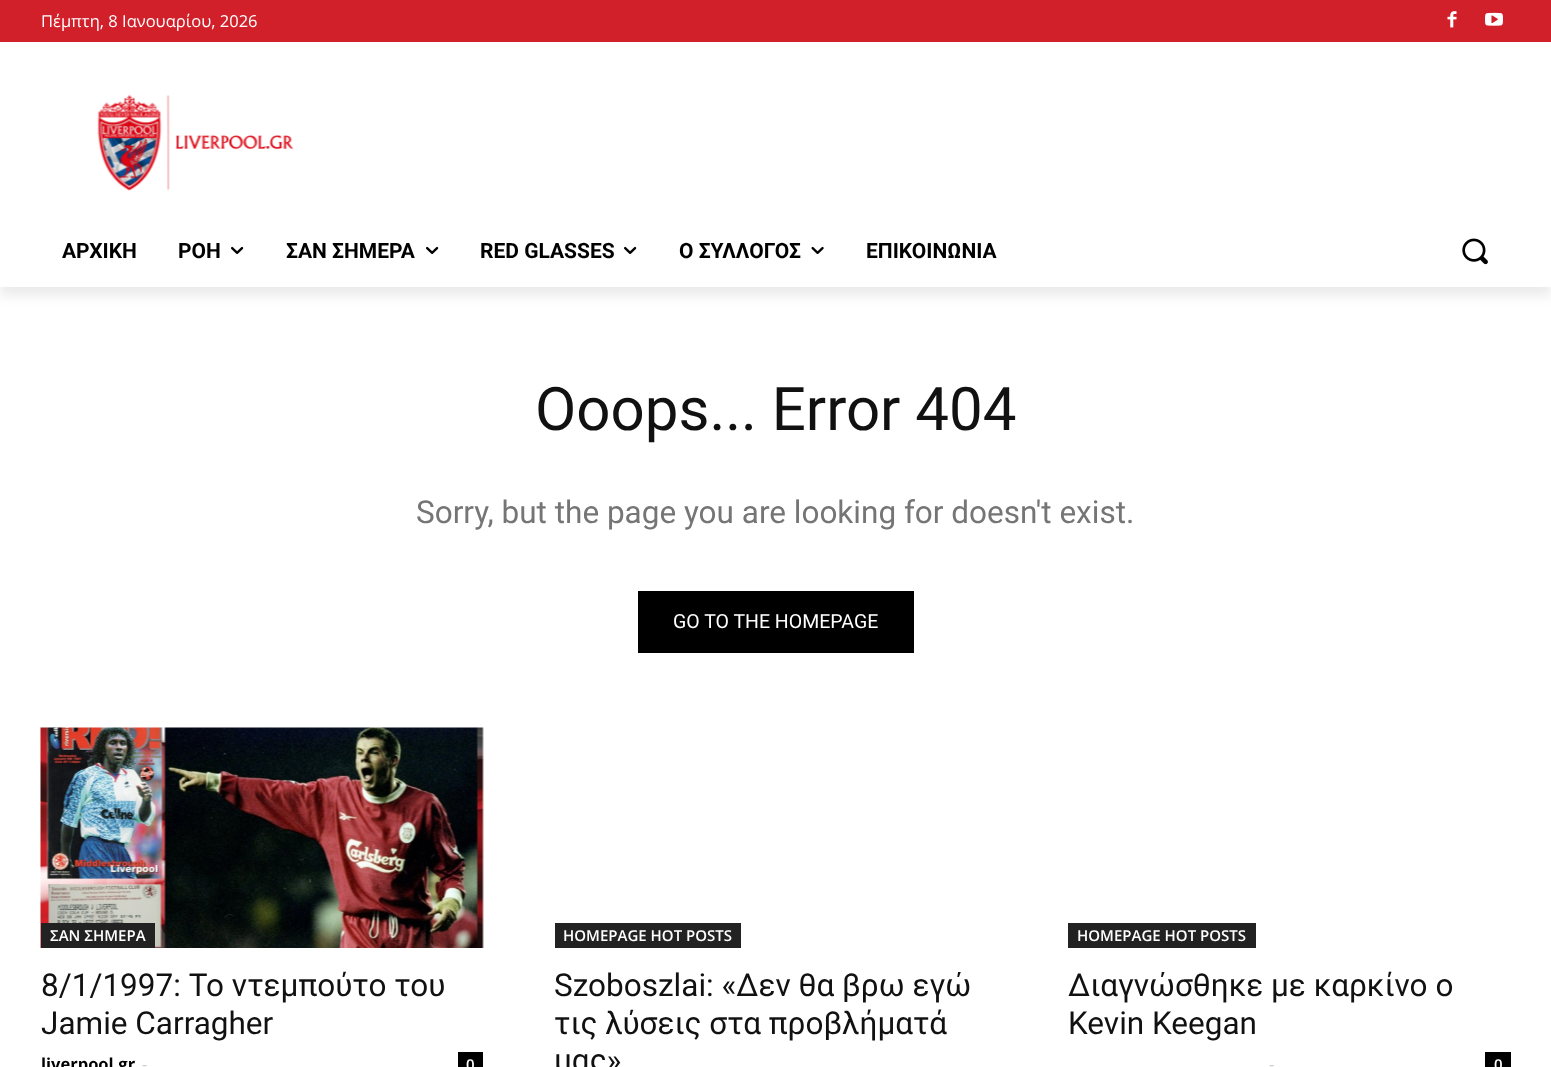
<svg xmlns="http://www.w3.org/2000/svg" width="1551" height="1067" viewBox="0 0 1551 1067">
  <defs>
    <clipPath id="clip1"><path d="M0 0H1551V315H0ZM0 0H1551V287H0Z" clip-rule="evenodd"/></clipPath>
    <filter id="blur1" x="-50%" y="-200%" width="200%" height="500%"><feGaussianBlur stdDeviation="6"/></filter>
  </defs>
  <rect width="100%" height="100%" fill="#ffffff"/>
  <rect x="0" y="0" width="1551" height="42" fill="#d1202a"/>
  <image x="1447" y="11" width="10" height="17" href="img1.png"/>
  <image x="1485" y="12" width="18" height="14" href="img2.png"/>
  <image x="97" y="94" width="197" height="97" href="img3.png"/>
  <g clip-path="url(#clip1)">
    <rect x="0" y="9" width="1551" height="287" fill="#000000" fill-opacity="0.08" filter="url(#blur1)"/>
  </g>
  <text x="41" y="27" font-family="Open Sans" font-size="16.5" fill="#ffffff">Πέμπτη, 8 Ιανουαρίου, 2026</text>
  <text x="62" y="258" font-family="Roboto" font-size="21" font-weight="bold" fill="#000000">ΑΡΧΙΚΗ</text>
  <text x="178" y="258" font-family="Roboto" font-size="21" font-weight="bold" fill="#000000">ΡΟΗ</text>
  <image x="231" y="246" width="13" height="8" href="img4.png"/>
  <text x="286" y="258" font-family="Roboto" font-size="21" font-weight="bold" fill="#000000">ΣΑΝ ΣΗΜΕΡΑ</text>
  <image x="426" y="246" width="13" height="8" href="img4.png"/>
  <text x="480" y="258" font-family="Roboto" font-size="21" font-weight="bold" fill="#000000">RED GLASSES</text>
  <image x="624" y="246" width="13" height="8" href="img4.png"/>
  <text x="679" y="258" font-family="Roboto" font-size="21" font-weight="bold" fill="#000000">Ο ΣΥΛΛΟΓΟΣ</text>
  <image x="811" y="246" width="13" height="8" href="img5.png"/>
  <text x="866" y="258" font-family="Roboto" font-size="21" font-weight="bold" fill="#000000">ΕΠΙΚΟΙΝΩΝΙΑ</text>
  <image x="1462" y="238" width="26" height="27" href="img6.png"/>
  <text x="535" y="430" font-family="Roboto" font-size="60" fill="#111111">Ooops... Error 404</text>
  <text x="416" y="523" font-family="Roboto" font-size="31.5" fill="#757575">Sorry, but the page you are looking for doesn't exist.</text>
  <rect x="638" y="591" width="276" height="62" fill="#000000"/>
  <text x="673" y="628" font-family="Roboto" font-size="19.5" fill="#ffffff">GO TO THE HOMEPAGE</text>
  <image x="40" y="727" width="444" height="221" href="img7.png"/>
  <rect x="41" y="923" width="114" height="25" fill="#222222"/>
  <text x="50" y="941" font-family="Open Sans" font-size="15" font-weight="600" fill="#ffffff">ΣΑΝ ΣΗΜΕΡΑ</text>
  <text x="41" y="996" font-family="Roboto" font-size="31.5" fill="#111111">8/1/1997: Το ντεμπούτο του</text>
  <text x="41" y="1034" font-family="Roboto" font-size="31.5" fill="#111111">Jamie Carragher</text>
  <text x="41" y="1070" font-family="Open Sans" font-size="16.5" font-weight="bold" fill="#000000">liverpool.gr</text>
  <text x="142" y="1070" font-family="Open Sans" font-size="16.5" fill="#cccccc">-</text>
  <rect x="458" y="1052" width="25" height="15" fill="#000000"/>
  <text x="466" y="1070" font-family="Open Sans" font-size="15" font-weight="600" fill="#ffffff">0</text>
  <rect x="555" y="923" width="186" height="25" fill="#222222"/>
  <text x="563" y="941" font-family="Open Sans" font-size="15" font-weight="600" fill="#ffffff">HOMEPAGE HOT POSTS</text>
  <text x="554" y="996" font-family="Roboto" font-size="31.5" fill="#111111">Szoboszlai: «Δεν θα βρω εγώ</text>
  <text x="554" y="1034" font-family="Roboto" font-size="31.5" fill="#111111">τις λύσεις στα προβλήματά</text>
  <text x="554" y="1071" font-family="Roboto" font-size="31.5" fill="#111111">μας»</text>
  <rect x="1068" y="923" width="188" height="25" fill="#222222"/>
  <text x="1077" y="941" font-family="Open Sans" font-size="15" font-weight="600" fill="#ffffff">HOMEPAGE HOT POSTS</text>
  <text x="1068" y="996" font-family="Roboto" font-size="31.5" fill="#111111">Διαγνώσθηκε με καρκίνο ο</text>
  <text x="1068" y="1034" font-family="Roboto" font-size="31.5" fill="#111111">Kevin Keegan</text>
  <text x="1269" y="1070" font-family="Open Sans" font-size="16.5" fill="#cccccc">-</text>
  <rect x="1485" y="1052" width="26" height="15" fill="#000000"/>
  <text x="1494" y="1070" font-family="Open Sans" font-size="15" font-weight="600" fill="#ffffff">0</text>
</svg>
